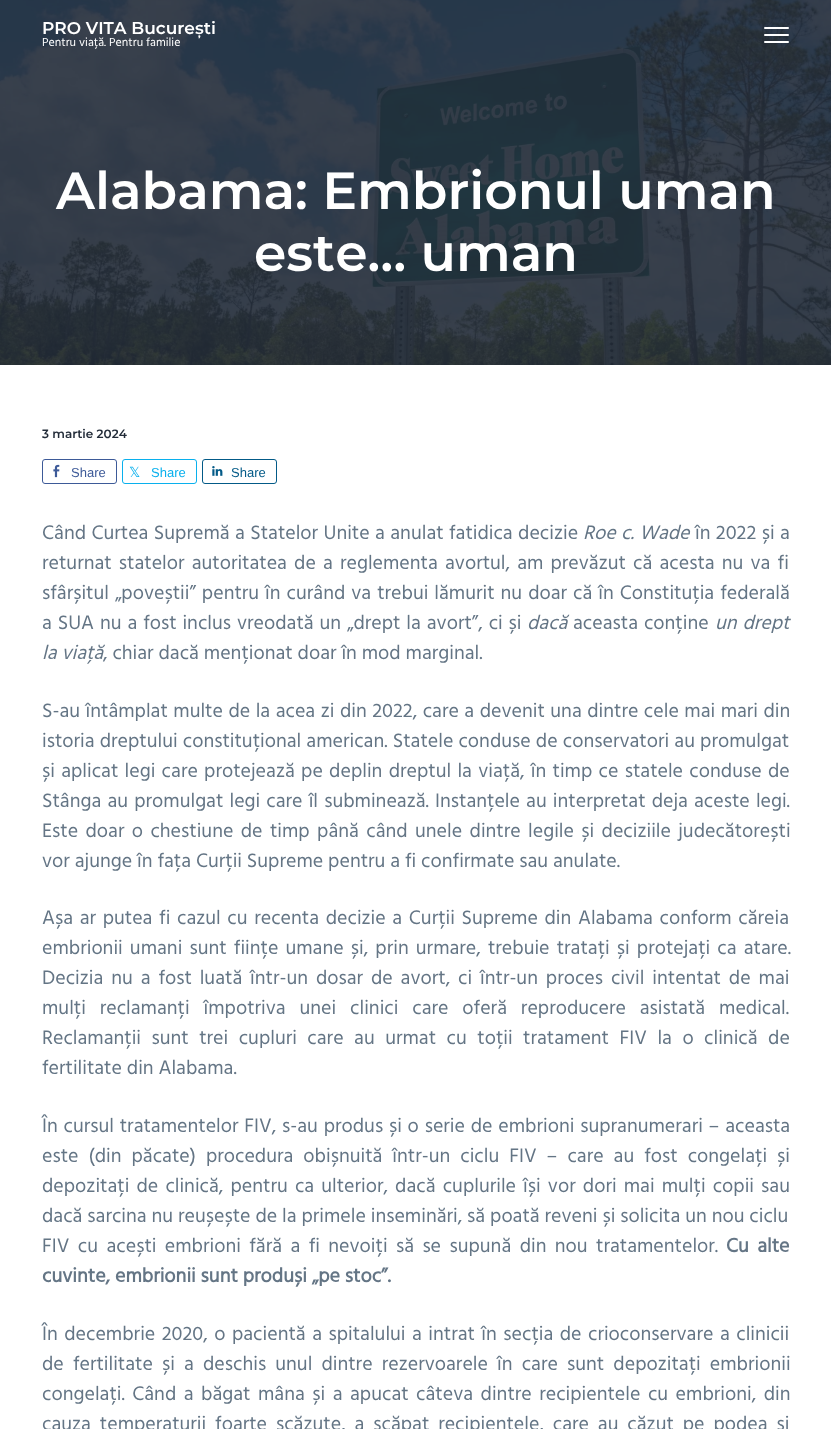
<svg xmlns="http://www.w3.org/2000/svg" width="831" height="1429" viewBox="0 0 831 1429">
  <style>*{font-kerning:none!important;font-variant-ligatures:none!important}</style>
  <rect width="100%" height="100%" fill="#ffffff"/>
  <image x="0" y="0" width="831" height="365" href="img1.png"/>
  <text x="42" y="34" font-family="Montserrat" font-size="17" font-weight="100" fill="#ffffff">PRO VITA București</text>
  <text x="42" y="46" font-family="Hind" font-size="12" fill="#ffffff">Pentru viață. Pentru familie</text>
  <rect x="764" y="34" width="25" height="2" rx="1" fill="#ffffff"/>
  <rect x="764" y="27" width="25" height="2" rx="1" fill="#ffffff"/>
  <rect x="764" y="41" width="25" height="2" rx="1" fill="#ffffff"/>
  <text x="56" y="209" font-family="Montserrat" font-size="52" font-weight="100" fill="#ffffff">Alabama: Embrionul uman</text>
  <text x="254" y="271" font-family="Montserrat" font-size="52" font-weight="100" fill="#ffffff">este… uman</text>
  <text x="42" y="438" font-family="Montserrat" font-size="12" font-weight="100" fill="#232c39">3 martie 2024</text>
  <rect x="42.5" y="459.5" width="74" height="24" rx="2.5" fill="none" stroke="#3d5a98"/>
  <image x="53" y="464" width="7" height="14" href="img2.png"/>
  <text x="71" y="477" font-family="Liberation Sans" font-size="13" fill="#3d5a98">Share</text>
  <rect x="122.5" y="459.5" width="74" height="24" rx="2.5" fill="none" stroke="#09b0ed"/>
  <text x="129" y="477" font-family="DejaVu Sans" font-size="14" fill="#09b0ed">𝕏</text>
  <text x="151" y="477" font-family="Liberation Sans" font-size="13" fill="#09b0ed">Share</text>
  <rect x="202.5" y="459.5" width="74" height="24" rx="2.5" fill="none" stroke="#035a87"/>
  <image x="212" y="466" width="11" height="10" href="img3.png"/>
  <text x="231" y="477" font-family="Liberation Sans" font-size="13" fill="#035a87">Share</text>
  <text x="42" y="539" word-spacing="0.5" font-family="Hind" font-size="20" fill="#647585">Când Curtea Supremă a Statelor Unite a anulat fatidica decizie</text>
  <text x="583" y="539" word-spacing="0.5" font-family="Hind" font-size="20" font-style="italic" fill="#647585">Roe c. Wade</text>
  <text x="695" y="539" word-spacing="0.5" font-family="Hind" font-size="20" fill="#647585">în 2022 și a</text>
  <text x="42" y="569" word-spacing="2.25" font-family="Hind" font-size="20" fill="#647585">returnat statelor autoritatea de a reglementa avortul, am prevăzut că acesta nu va fi</text>
  <text x="42" y="599" word-spacing="1.1" font-family="Hind" font-size="20" fill="#647585">sfârșitul „poveștii” pentru în curând va trebui lămurit nu doar că în Constituția federală</text>
  <text x="42" y="629" word-spacing="1" font-family="Hind" font-size="20" fill="#647585">a SUA nu a fost inclus vreodată un „drept la avort”, ci și</text>
  <text x="527" y="629" font-family="Hind" font-size="20" font-style="italic" fill="#647585">dacă</text>
  <text x="573" y="629" word-spacing="1" font-family="Hind" font-size="20" fill="#647585">aceasta conține</text>
  <text x="715" y="629" word-spacing="1" font-family="Hind" font-size="20" font-style="italic" fill="#647585">un drept</text>
  <text x="42" y="659" font-family="Hind" font-size="20" font-style="italic" fill="#647585">la viață</text>
  <text x="103" y="659" font-family="Hind" font-size="20" fill="#647585">, chiar dacă menționat doar în mod marginal.</text>
  <text x="42" y="717" word-spacing="0.6" font-family="Hind" font-size="20" fill="#647585">S-au întâmplat multe de la acea zi din 2022, care a devenit una dintre cele mai mari din</text>
  <text x="42" y="747" word-spacing="0.25" font-family="Hind" font-size="20" fill="#647585">istoria dreptului constituțional american. Statele conduse de conservatori au promulgat</text>
  <text x="42" y="777" word-spacing="1.4" font-family="Hind" font-size="20" fill="#647585">și aplicat legi care protejează pe deplin dreptul la viață, în timp ce statele conduse de</text>
  <text x="42" y="807" word-spacing="1.25" font-family="Hind" font-size="20" fill="#647585">Stânga au promulgat legi care îl subminează. Instanțele au interpretat deja aceste legi.</text>
  <text x="42" y="837" word-spacing="2.5" font-family="Hind" font-size="20" fill="#647585">Este doar o chestiune de timp până când unele dintre legile și deciziile judecătorești</text>
  <text x="42" y="867" font-family="Hind" font-size="20" fill="#647585">vor ajunge în fața Curții Supreme pentru a fi confirmate sau anulate.</text>
  <text x="42" y="924" word-spacing="1.75" font-family="Hind" font-size="20" fill="#647585">Așa ar putea fi cazul cu recenta decizie a Curții Supreme din Alabama conform căreia</text>
  <text x="42" y="954" word-spacing="2.25" font-family="Hind" font-size="20" fill="#647585">embrionii umani sunt ființe umane și, prin urmare, trebuie tratați și protejați ca atare.</text>
  <text x="42" y="984" word-spacing="3" font-family="Hind" font-size="20" fill="#647585">Decizia nu a fost luată într-un dosar de avort, ci într-un proces civil intentat de mai</text>
  <text x="42" y="1014" word-spacing="9" font-family="Hind" font-size="20" fill="#647585">mulți reclamanți împotriva unei clinici care oferă reproducere asistată medical.</text>
  <text x="42" y="1044" word-spacing="5.6" font-family="Hind" font-size="20" fill="#647585">Reclamanții sunt trei cupluri care au urmat cu toții tratament FIV la o clinică de</text>
  <text x="42" y="1074" font-family="Hind" font-size="20" fill="#647585">fertilitate din Alabama.</text>
  <text x="42" y="1132" word-spacing="0.9" font-family="Hind" font-size="20" fill="#647585">În cursul tratamentelor FIV, s-au produs și o serie de embrioni supranumerari – aceasta</text>
  <text x="42" y="1162" word-spacing="5.1" font-family="Hind" font-size="20" fill="#647585">este (din păcate) procedura obișnuită într-un ciclu FIV – care au fost congelați și</text>
  <text x="42" y="1192" word-spacing="2.25" font-family="Hind" font-size="20" fill="#647585">depozitați de clinică, pentru ca ulterior, dacă cuplurile își vor dori mai mulți copii sau</text>
  <text x="42" y="1222" font-family="Hind" font-size="20" fill="#647585">dacă sarcina nu reușește de la primele inseminări, să poată reveni și solicita un nou ciclu</text>
  <text x="42" y="1252" word-spacing="3.5" font-family="Hind" font-size="20" fill="#647585">FIV cu acești embrioni fără a fi nevoiți să se supună din nou tratamentelor.</text>
  <text x="726" y="1252" word-spacing="3.5" font-family="Hind" font-size="20" font-weight="bold" fill="#647585">Cu alte</text>
  <text x="42" y="1282" font-family="Hind" font-size="20" font-weight="bold" fill="#647585">cuvinte, embrionii sunt produși „pe stoc”.</text>
  <text x="42" y="1340" word-spacing="1.6" font-family="Hind" font-size="20" fill="#647585">În decembrie 2020, o pacientă a spitalului a intrat în secția de crioconservare a clinicii</text>
  <text x="42" y="1370" word-spacing="4.25" font-family="Hind" font-size="20" fill="#647585">de fertilitate și a deschis unul dintre rezervoarele în care sunt depozitați embrionii</text>
  <text x="42" y="1400" word-spacing="2.6" font-family="Hind" font-size="20" fill="#647585">congelați. Când a băgat mâna și a apucat câteva dintre recipientele cu embrioni, din</text>
  <text x="42" y="1430" word-spacing="4" font-family="Hind" font-size="20" fill="#647585">cauza temperaturii foarte scăzute, a scăpat recipientele, care au căzut pe podea și</text>
</svg>
